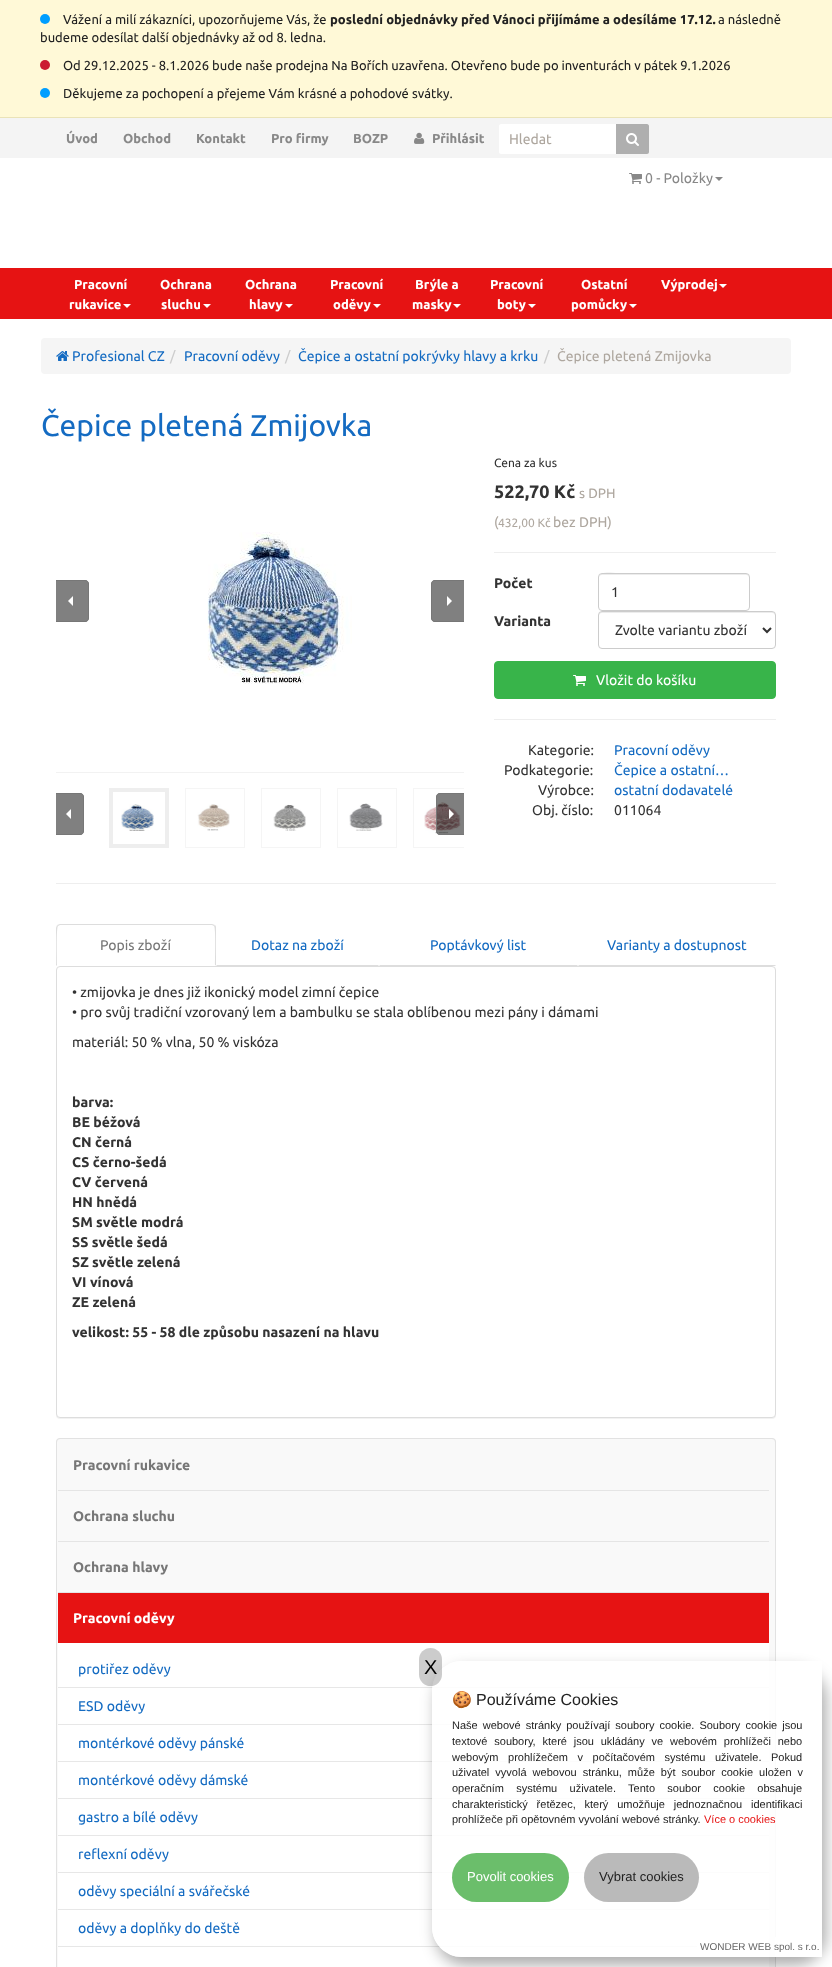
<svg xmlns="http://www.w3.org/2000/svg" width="832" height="1967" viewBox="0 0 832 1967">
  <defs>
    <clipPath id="clip1"><rect x="56" y="773" width="408" height="90"/></clipPath>
    <filter id="blur1" x="-50%" y="-200%" width="200%" height="500%"><feGaussianBlur stdDeviation="0.5"/></filter>
    <clipPath id="clip2"><path d="M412 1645H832V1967H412ZM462 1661H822V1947C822 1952.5 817.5 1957 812 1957H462C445.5 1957 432 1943.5 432 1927V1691C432 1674.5 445.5 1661 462 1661Z" clip-rule="evenodd"/></clipPath>
    <filter id="blur2" x="-50%" y="-200%" width="200%" height="500%"><feGaussianBlur stdDeviation="7.5"/></filter>
  </defs>
  <rect width="100%" height="100%" fill="#ffffff"/>
  <rect x="0" y="0" width="832" height="117" fill="#fff9d7"/>
  <rect x="0" y="117" width="832" height="1" fill="#eae3b8"/>
  <circle cx="45" cy="19" r="5" fill="#009eff"/>
  <text x="63" y="24" font-family="Ubuntu" font-size="13" fill="#222222">Vážení a milí zákazníci, upozorňujeme Vás, že</text>
  <text x="330" y="24" font-family="Ubuntu" font-size="13" font-weight="bold" fill="#222222">poslední objednávky před Vánoci přijímáme a odesíláme 17.12.</text>
  <text x="718" y="24" font-family="Ubuntu" font-size="13" fill="#222222">a následně</text>
  <text x="40" y="42" font-family="Ubuntu" font-size="13" fill="#222222">budeme odesílat další objednávky až od 8. ledna.</text>
  <circle cx="45" cy="65" r="5" fill="#cb1b31"/>
  <text x="63" y="70" font-family="Ubuntu" font-size="13" fill="#222222">Od 29.12.2025 - 8.1.2026 bude naše prodejna Na Bořích uzavřena. Otevřeno bude po inventurách v pátek 9.1.2026</text>
  <circle cx="45" cy="93" r="5" fill="#009eff"/>
  <text x="63" y="98" font-family="Ubuntu" font-size="13" fill="#222222">Děkujeme za pochopení a přejeme Vám krásné a pohodové svátky.</text>
  <rect x="0" y="118" width="832" height="40" fill="#f4f4f4"/>
  <text x="66" y="143" font-family="Ubuntu" font-size="13" font-weight="bold" fill="#888888">Úvod</text>
  <text x="123" y="143" font-family="Ubuntu" font-size="13" font-weight="bold" fill="#888888">Obchod</text>
  <text x="196" y="143" font-family="Ubuntu" font-size="13" font-weight="bold" fill="#888888">Kontakt</text>
  <text x="271" y="143" font-family="Ubuntu" font-size="13" font-weight="bold" fill="#888888">Pro firmy</text>
  <text x="353" y="143" font-family="Ubuntu" font-size="13" font-weight="bold" fill="#888888">BOZP</text>
  <image x="414" y="132" width="11" height="12" href="img1.png"/>
  <text x="432" y="143" font-family="Ubuntu" font-size="13" font-weight="bold" fill="#888888">Přihlásit</text>
  <path d="M501 124H617V154H501C500 154 499 153 499 152V126C499 125 500 124 501 124Z" fill="#ffffff"/>
  <text x="509" y="144" font-family="Ubuntu" font-size="14" fill="#aea79f">Hledat</text>
  <path d="M616 124H647C648 124 649 125 649 126V152C649 153 648 154 647 154H616Z" fill="#afafaf"/>
  <image x="626" y="133" width="13" height="13" href="img2.png"/>
  <image x="629" y="173" width="13" height="11" href="img3.png"/>
  <text x="645" y="183" font-family="Ubuntu" font-size="14" fill="#888888">0 - Položky</text>
  <path d="M715 177H723L719 181Z" fill="#888888"/>
  <rect x="0" y="268" width="832" height="51" fill="#e61313"/>
  <text x="74" y="289" font-family="Ubuntu" font-size="13" font-weight="bold" fill="#ffffff">Pracovní</text>
  <text x="69" y="309" font-family="Ubuntu" font-size="13" font-weight="bold" fill="#ffffff">rukavice</text>
  <path d="M123 304H131L127 308Z" fill="#ffffff"/>
  <text x="160" y="289" font-family="Ubuntu" font-size="13" font-weight="bold" fill="#ffffff">Ochrana</text>
  <text x="161" y="309" font-family="Ubuntu" font-size="13" font-weight="bold" fill="#ffffff">sluchu</text>
  <path d="M203 304H211L207 308Z" fill="#ffffff"/>
  <text x="245" y="289" font-family="Ubuntu" font-size="13" font-weight="bold" fill="#ffffff">Ochrana</text>
  <text x="249" y="309" font-family="Ubuntu" font-size="13" font-weight="bold" fill="#ffffff">hlavy</text>
  <path d="M285 304H293L289 308Z" fill="#ffffff"/>
  <text x="330" y="289" font-family="Ubuntu" font-size="13" font-weight="bold" fill="#ffffff">Pracovní</text>
  <text x="333" y="309" font-family="Ubuntu" font-size="13" font-weight="bold" fill="#ffffff">oděvy</text>
  <path d="M373 304H381L377 308Z" fill="#ffffff"/>
  <text x="415" y="289" font-family="Ubuntu" font-size="13" font-weight="bold" fill="#ffffff">Brýle a</text>
  <text x="412" y="309" font-family="Ubuntu" font-size="13" font-weight="bold" fill="#ffffff">masky</text>
  <path d="M453 304H461L457 308Z" fill="#ffffff"/>
  <text x="490" y="289" font-family="Ubuntu" font-size="13" font-weight="bold" fill="#ffffff">Pracovní</text>
  <text x="497" y="309" font-family="Ubuntu" font-size="13" font-weight="bold" fill="#ffffff">boty</text>
  <path d="M528 304H536L532 308Z" fill="#ffffff"/>
  <text x="581" y="289" font-family="Ubuntu" font-size="13" font-weight="bold" fill="#ffffff">Ostatní</text>
  <text x="571" y="309" font-family="Ubuntu" font-size="13" font-weight="bold" fill="#ffffff">pomůcky</text>
  <path d="M629 304H637L633 308Z" fill="#ffffff"/>
  <text x="661" y="289" font-family="Ubuntu" font-size="13" font-weight="bold" fill="#ffffff">Výprodej</text>
  <path d="M719 284H727L723 288Z" fill="#ffffff"/>
  <rect x="41" y="338" width="750" height="36" rx="4" fill="#f5f5f5"/>
  <image x="56" y="351" width="13" height="10" href="img4.png"/>
  <text x="72" y="361" font-family="Ubuntu" font-size="14" fill="#146bc2">Profesional CZ</text>
  <text x="170" y="361" font-family="Ubuntu" font-size="14" fill="#cccccc">/</text>
  <text x="184" y="361" font-family="Ubuntu" font-size="14" fill="#146bc2">Pracovní oděvy</text>
  <text x="285" y="361" font-family="Ubuntu" font-size="14" fill="#cccccc">/</text>
  <text x="298" y="361" font-family="Ubuntu" font-size="14" fill="#146bc2">Čepice a ostatní pokrývky hlavy a krku</text>
  <text x="544" y="361" font-family="Ubuntu" font-size="14" fill="#cccccc">/</text>
  <text x="557" y="361" font-family="Ubuntu" font-size="14" fill="#aea79f">Čepice pletená Zmijovka</text>
  <text x="41" y="436" font-family="Ubuntu" font-size="30" fill="#146bc2">Čepice pletená Zmijovka</text>
  <path d="M56 580H85C87 580 89 582 89 584V618C89 620 87 622 85 622H56Z" fill="#808080"/>
  <path d="M56 580H85C87 580 89 582 89 584V618C89 620 87 622 85 622H56ZM56 581H85C87 581 88 582 88 584V618C88 620 87 621 85 621H56Z" fill="#777777" fill-rule="evenodd"/>
  <path d="M73 596V606L68 601Z" fill="#ffffff"/>
  <image x="207" y="532" width="145" height="152" href="img5.png"/>
  <path d="M435 580H464V622H435C433 622 431 620 431 618V584C431 582 433 580 435 580Z" fill="#808080"/>
  <path d="M435 580H464V622H435C433 622 431 620 431 618V584C431 582 433 580 435 580ZM435 581H464V621H435C433 621 432 620 432 618V584C432 582 433 581 435 581Z" fill="#777777" fill-rule="evenodd"/>
  <path d="M447 606V596L452 601Z" fill="#ffffff"/>
  <rect x="56" y="772" width="408" height="1" fill="#f2f2f2"/>
  <path d="M56 793H80C82 793 84 795 84 797V831C84 833 82 835 80 835H56Z" fill="#808080"/>
  <path d="M56 793H80C82 793 84 795 84 797V831C84 833 82 835 80 835H56ZM56 794H80C82 794 83 795 83 797V831C83 833 82 834 80 834H56Z" fill="#777777" fill-rule="evenodd"/>
  <path d="M71 809V819L66 814Z" fill="#ffffff"/>
  <rect x="111" y="790" width="56" height="56" fill="none" stroke="#eeeeee" stroke-width="4"/>
  <image x="121" y="804" width="33" height="27" href="img6.png"/>
  <rect x="185.5" y="788.5" width="59" height="59" fill="none" stroke="#f5f5f5"/>
  <image x="197" y="804" width="33" height="27" href="img7.png"/>
  <rect x="261.5" y="788.5" width="59" height="59" fill="none" stroke="#f5f5f5"/>
  <image x="273" y="804" width="33" height="27" href="img8.png"/>
  <rect x="337.5" y="788.5" width="59" height="59" fill="none" stroke="#f5f5f5"/>
  <image x="349" y="803" width="34" height="28" href="img9.png"/>
  <g clip-path="url(#clip1)">
    <rect x="413.5" y="788.5" width="59" height="59" fill="none" stroke="#f5f5f5"/>
  </g>
  <image x="424" y="802" width="37" height="32" href="img10.png"/>
  <path d="M440 793H464V835H440C438 835 436 833 436 831V797C436 795 438 793 440 793Z" fill="#000000" fill-opacity="0.5"/>
  <path d="M440 793H464V835H440C438 835 436 833 436 831V797C436 795 438 793 440 793ZM440 794H464V834H440C438 834 437 833 437 831V797C437 795 438 794 440 794Z" fill="#777777" fill-rule="evenodd"/>
  <path d="M449 819V809L454 814Z" fill="#ffffff"/>
  <text x="494" y="467" font-family="Ubuntu" font-size="12" fill="#333333">Cena za kus</text>
  <text x="494" y="498" font-family="Ubuntu" font-size="18" font-weight="bold" fill="#333333">522,70 Kč</text>
  <text x="579" y="498" font-family="Ubuntu" font-size="13.5" fill="#aea79f">s DPH</text>
  <text x="494" y="527" font-family="Ubuntu" font-size="14" fill="#aea79f">(</text>
  <text x="498" y="527" font-family="Ubuntu" font-size="12" fill="#aea79f">432,00 Kč</text>
  <text x="553" y="527" font-family="Ubuntu" font-size="14" fill="#aea79f">bez DPH)</text>
  <rect x="494" y="552" width="282" height="1" fill="#eeeeee"/>
  <text x="494" y="588" font-family="Ubuntu" font-size="14" font-weight="bold" fill="#333333">Počet</text>
  <path d="M602 575H746C748 575 749 576 749 578C749 576 749 575 747 574H626C618 574 599 569 599 578C599 576 600 575 602 575Z" fill="#ececec"/>
  <rect x="598.5" y="573.5" width="151" height="37" rx="3.5" fill="none" stroke="#cccccc"/>
  <text x="611" y="597" font-family="Ubuntu" font-size="14" fill="#333333">1</text>
  <text x="494" y="626" font-family="Ubuntu" font-size="14" font-weight="bold" fill="#333333">Varianta</text>
  <path d="M602 613H772C774 613 775 614 775 616V615C775 613 774 612 772 612H602C600 612 599 613 599 615V616C599 614 600 613 602 613Z" fill="#ececec"/>
  <rect x="598.5" y="611.5" width="177" height="37" rx="3.5" fill="none" stroke="#cccccc"/>
  <path d="M763 628L767 632L771 628" fill="none" stroke="#333333" stroke-width="2"/>
  <text x="615" y="635" font-family="Ubuntu" font-size="14" fill="#333333">Zvolte variantu zboží</text>
  <rect x="494.5" y="661.5" width="281" height="37" rx="3.5" fill="#38b44a" stroke="#38b44a"/>
  <image x="573" y="675" width="13" height="11" href="img11.png"/>
  <text x="596" y="685" font-family="Ubuntu" font-size="14" fill="#ffffff">Vložit do košíku</text>
  <rect x="494" y="719" width="282" height="1" fill="#eeeeee"/>
  <text x="528" y="755" font-family="Ubuntu" font-size="14" fill="#333333">Kategorie:</text>
  <text x="614" y="755" font-family="Ubuntu" font-size="14" fill="#146bc2">Pracovní oděvy</text>
  <text x="504" y="775" font-family="Ubuntu" font-size="14" fill="#333333">Podkategorie:</text>
  <text x="614" y="775" font-family="Ubuntu" font-size="14" fill="#146bc2">Čepice a ostatní…</text>
  <text x="538" y="795" font-family="Ubuntu" font-size="14" fill="#333333">Výrobce:</text>
  <text x="614" y="795" font-family="Ubuntu" font-size="14" fill="#146bc2">ostatní dodavatelé</text>
  <text x="532" y="815" font-family="Ubuntu" font-size="14" fill="#333333">Obj. číslo:</text>
  <text x="614" y="815" font-family="Ubuntu" font-size="14" fill="#333333">011064</text>
  <rect x="56" y="883" width="720" height="1" fill="#eeeeee"/>
  <path d="M60 924L57 925L58 926L60 925H212L214 926L215 925L212 924Z" fill="#dddddd"/>
  <rect x="56" y="967" width="720" height="452" rx="4" fill="#000000" fill-opacity="0.05" filter="url(#blur1)"/>
  <path d="M216 966V928C216 927 216 926 215 925L214 926C216 928 215 960 215 965Z" fill="#dddddd"/>
  <path d="M216 966L215 965H57L56 966Z" fill="#ffffff"/>
  <path d="M56 966L57 965C57 960 56 928 58 926L57 925L56 928Z" fill="#dddddd"/>
  <text x="100" y="950" font-family="Ubuntu" font-size="14" fill="#777777">Popis zboží</text>
  <path d="M379 966L378 965H217L216 966Z" fill="#dddddd"/>
  <text x="251" y="950" font-family="Ubuntu" font-size="14" fill="#146bc2">Dotaz na zboží</text>
  <path d="M578 966L577 965H380L379 966Z" fill="#dddddd"/>
  <text x="430" y="950" font-family="Ubuntu" font-size="14" fill="#146bc2">Poptávkový list</text>
  <path d="M776 966L775 965H579L578 966Z" fill="#dddddd"/>
  <text x="607" y="950" font-family="Ubuntu" font-size="14" fill="#146bc2">Varianty a dostupnost</text>
  <rect x="56.5" y="966.5" width="719" height="451" rx="3.5" fill="#ffffff" stroke="#dddddd"/>
  <text x="72" y="997" font-family="Ubuntu" font-size="14" fill="#333333">• zmijovka je dnes již ikonický model zimní čepice</text>
  <text x="72" y="1017" font-family="Ubuntu" font-size="14" fill="#333333">• pro svůj tradiční vzorovaný lem a bambulku se stala oblíbenou mezi pány i dámami</text>
  <text x="72" y="1047" font-family="Ubuntu" font-size="14" fill="#333333">materiál: 50 % vlna, 50 % viskóza</text>
  <text x="72" y="1107" font-family="Ubuntu" font-size="14" font-weight="bold" fill="#333333">barva:</text>
  <text x="72" y="1127" font-family="Ubuntu" font-size="14" font-weight="bold" fill="#333333">BE béžová</text>
  <text x="72" y="1147" font-family="Ubuntu" font-size="14" font-weight="bold" fill="#333333">CN černá</text>
  <text x="72" y="1167" font-family="Ubuntu" font-size="14" font-weight="bold" fill="#333333">CS černo-šedá</text>
  <text x="72" y="1187" font-family="Ubuntu" font-size="14" font-weight="bold" fill="#333333">CV červená</text>
  <text x="72" y="1207" font-family="Ubuntu" font-size="14" font-weight="bold" fill="#333333">HN hnědá</text>
  <text x="72" y="1227" font-family="Ubuntu" font-size="14" font-weight="bold" fill="#333333">SM světle modrá</text>
  <text x="72" y="1247" font-family="Ubuntu" font-size="14" font-weight="bold" fill="#333333">SS světle šedá</text>
  <text x="72" y="1267" font-family="Ubuntu" font-size="14" font-weight="bold" fill="#333333">SZ světle zelená</text>
  <text x="72" y="1287" font-family="Ubuntu" font-size="14" font-weight="bold" fill="#333333">VI vínová</text>
  <text x="72" y="1307" font-family="Ubuntu" font-size="14" font-weight="bold" fill="#333333">ZE zelená</text>
  <text x="72" y="1337" font-family="Ubuntu" font-size="14" font-weight="bold" fill="#333333">velikost: 55 - 58 dle způsobu nasazení na hlavu</text>
  <rect x="56.5" y="1438.5" width="719" height="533" rx="3.5" fill="none" stroke="#dddddd"/>
  <rect x="56.5" y="1438.5" width="719" height="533" rx="3.5" fill="#f9f9f9" stroke="#e2e2e2"/>
  <rect x="58" y="1490" width="711" height="1" fill="#e5e5e5"/>
  <text x="73" y="1470" font-family="Ubuntu" font-size="14" font-weight="bold" fill="#777777">Pracovní rukavice</text>
  <rect x="58" y="1541" width="711" height="1" fill="#e5e5e5"/>
  <text x="73" y="1521" font-family="Ubuntu" font-size="14" font-weight="bold" fill="#777777">Ochrana sluchu</text>
  <rect x="58" y="1592" width="711" height="1" fill="#e5e5e5"/>
  <text x="73" y="1572" font-family="Ubuntu" font-size="14" font-weight="bold" fill="#777777">Ochrana hlavy</text>
  <rect x="58" y="1593" width="711" height="50" fill="#e61313"/>
  <text x="73" y="1623" font-family="Ubuntu" font-size="14" font-weight="bold" fill="#ffffff">Pracovní oděvy</text>
  <rect x="58" y="1643" width="711" height="324" fill="#ffffff"/>
  <rect x="58" y="1687" width="711" height="1" fill="#e7e7e7"/>
  <text x="78" y="1674" font-family="Ubuntu" font-size="14" fill="#146bc2">protiřez oděvy</text>
  <rect x="58" y="1724" width="711" height="1" fill="#e7e7e7"/>
  <text x="78" y="1711" font-family="Ubuntu" font-size="14" fill="#146bc2">ESD oděvy</text>
  <rect x="58" y="1761" width="711" height="1" fill="#e7e7e7"/>
  <text x="78" y="1748" font-family="Ubuntu" font-size="14" fill="#146bc2">montérkové oděvy pánské</text>
  <rect x="58" y="1798" width="711" height="1" fill="#e7e7e7"/>
  <text x="78" y="1785" font-family="Ubuntu" font-size="14" fill="#146bc2">montérkové oděvy dámské</text>
  <rect x="58" y="1835" width="711" height="1" fill="#e7e7e7"/>
  <text x="78" y="1822" font-family="Ubuntu" font-size="14" fill="#146bc2">gastro a bílé oděvy</text>
  <rect x="58" y="1872" width="711" height="1" fill="#e7e7e7"/>
  <text x="78" y="1859" font-family="Ubuntu" font-size="14" fill="#146bc2">reflexní oděvy</text>
  <rect x="58" y="1909" width="711" height="1" fill="#e7e7e7"/>
  <text x="78" y="1896" font-family="Ubuntu" font-size="14" fill="#146bc2">oděvy speciální a svářečské</text>
  <rect x="58" y="1946" width="639" height="1" fill="#e7e7e7"/>
  <text x="78" y="1933" font-family="Ubuntu" font-size="14" fill="#146bc2">oděvy a doplňky do deště</text>
  <g clip-path="url(#clip2)">
    <rect x="436" y="1669" width="390" height="296" rx="30" fill="#000000" fill-opacity="0.33" filter="url(#blur2)"/>
  </g>
  <path d="M462 1661H822V1947C822 1952.5 817.5 1957 812 1957H462C445.5 1957 432 1943.5 432 1927V1691C432 1674.5 445.5 1661 462 1661Z" fill="#ffffff" fill-opacity="0.85"/>
  <rect x="419" y="1648" width="23" height="38" rx="11.5" fill="#000000" fill-opacity="0.2"/>
  <text x="424" y="1674" font-family="Liberation Sans" font-size="20" fill="#000000">X</text>
  <text x="452" y="1705" font-family="Noto Color Emoji" font-size="16" fill="#222222">🍪</text>
  <text x="476" y="1705" font-family="Liberation Sans" font-size="16" fill="#222222">Používáme Cookies</text>
  <text x="452" y="1729" word-spacing="2" font-family="Liberation Sans" font-size="11" fill="#222222">Naše webové stránky používají soubory cookie. Soubory cookie jsou</text>
  <text x="452" y="1745" word-spacing="3.75" font-family="Liberation Sans" font-size="11" fill="#222222">textové soubory, které jsou ukládány ve webovém prohlížeči nebo</text>
  <text x="452" y="1761" word-spacing="6.5" font-family="Liberation Sans" font-size="11" fill="#222222">webovým prohlížečem v počítačovém systému uživatele. Pokud</text>
  <text x="452" y="1776" word-spacing="3" font-family="Liberation Sans" font-size="11" fill="#222222">uživatel vyvolá webovou stránku, může být soubor cookie uložen v</text>
  <text x="452" y="1792" word-spacing="9.25" font-family="Liberation Sans" font-size="11" fill="#222222">operačním systému uživatele. Tento soubor cookie obsahuje</text>
  <text x="452" y="1808" word-spacing="5.75" font-family="Liberation Sans" font-size="11" fill="#222222">charakteristický řetězec, který umožňuje jednoznačnou identifikaci</text>
  <text x="452" y="1823" font-family="Liberation Sans" font-size="11" fill="#222222">prohlížeče při opětovném vyvolání webové stránky.</text>
  <text x="704" y="1823" font-family="Liberation Sans" font-size="11" fill="#e61313">Více o cookies</text>
  <rect x="452" y="1853" width="117" height="49" rx="24.5" fill="#6bbe6b"/>
  <text x="467" y="1881" font-family="Liberation Sans" font-size="13" fill="#ffffff">Povolit cookies</text>
  <rect x="584" y="1853" width="115" height="49" rx="24.5" fill="#bababa"/>
  <text x="599" y="1881" font-family="Liberation Sans" font-size="13" fill="#222222">Vybrat cookies</text>
  <rect x="775" y="1937" width="47" height="20" fill="#ffffff"/>
  <text x="700" y="1950" font-family="Liberation Sans" font-size="10" fill="#666666">WONDER WEB spol. s r.o.</text>
</svg>
